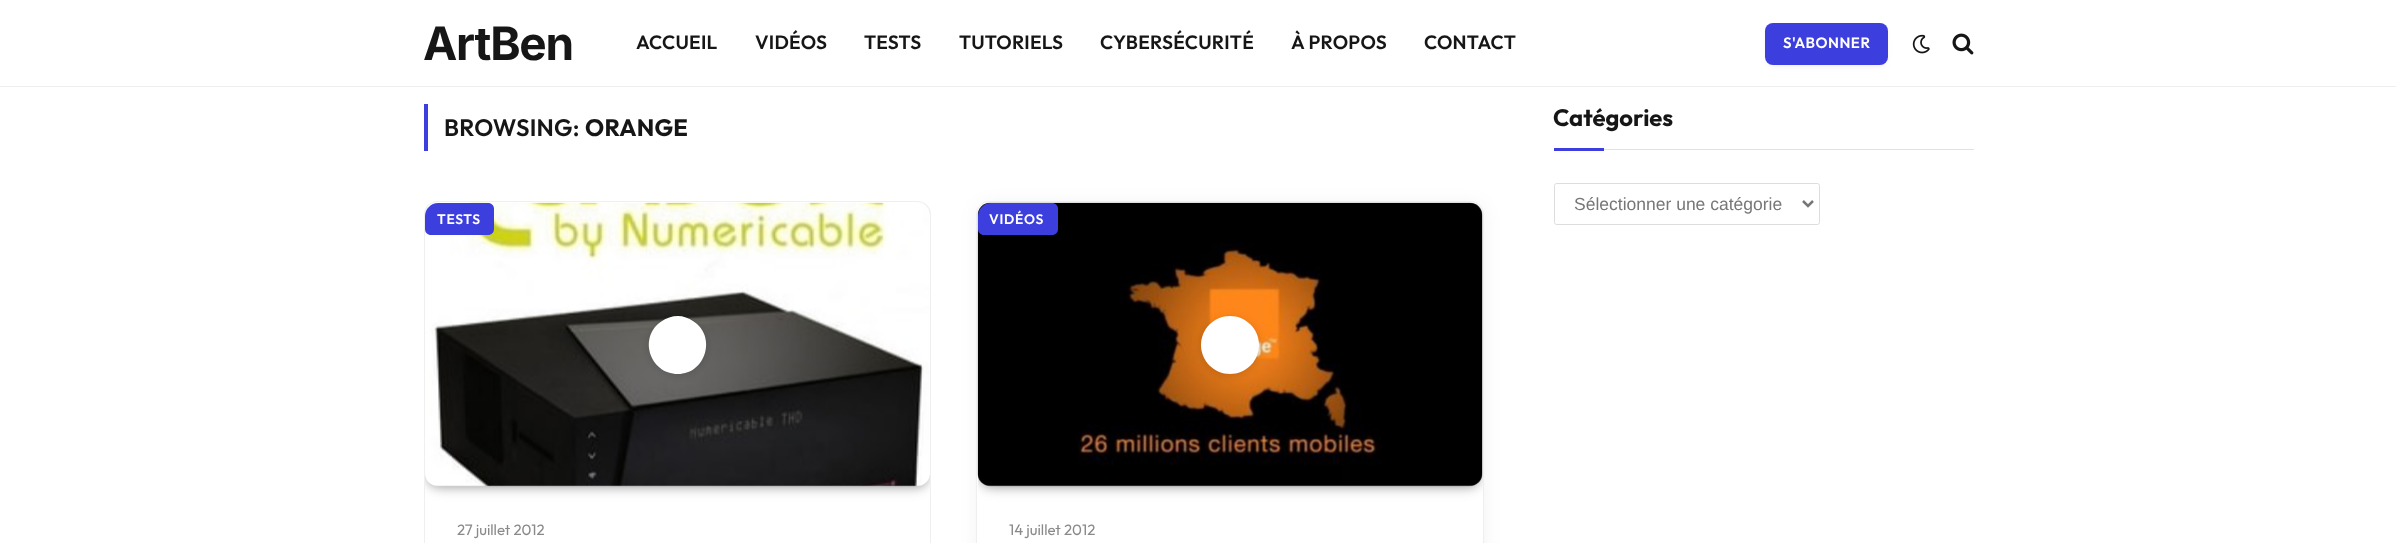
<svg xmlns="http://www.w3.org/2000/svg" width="2396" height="543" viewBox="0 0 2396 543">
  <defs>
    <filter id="blur1" x="-50%" y="-200%" width="200%" height="500%"><feGaussianBlur stdDeviation="4.5"/></filter>
    <clipPath id="clip1"><rect x="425" y="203" width="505" height="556" rx="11"/></clipPath>
    <filter id="blur2" x="-50%" y="-200%" width="200%" height="500%"><feGaussianBlur stdDeviation="7.5"/></filter>
    <filter id="blur3" x="-50%" y="-200%" width="200%" height="500%"><feGaussianBlur stdDeviation="4"/></filter>
    <filter id="blur4" x="-50%" y="-200%" width="200%" height="500%"><feGaussianBlur stdDeviation="9.5"/></filter>
    <clipPath id="clip2"><rect x="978" y="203" width="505" height="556" rx="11"/></clipPath>
  </defs>
  <rect width="100%" height="100%" fill="#ffffff"/>
  <rect x="0" y="86" width="2396" height="1" fill="#efefef"/>
  <text x="423" y="60" font-family="Inter" font-size="46" font-weight="bold" letter-spacing="-1.25" fill="#161616">ArtBen</text>
  <text x="636" y="49" font-family="Outfit" font-size="19.25" font-weight="600" letter-spacing="0.25" fill="#161616">ACCUEIL</text>
  <text x="755" y="49" font-family="Outfit" font-size="19.25" font-weight="600" letter-spacing="0.25" fill="#161616">VIDÉOS</text>
  <text x="864" y="49" font-family="Outfit" font-size="19.25" font-weight="600" letter-spacing="0.25" fill="#161616">TESTS</text>
  <text x="959" y="49" font-family="Outfit" font-size="19.25" font-weight="600" letter-spacing="0.25" fill="#161616">TUTORIELS</text>
  <text x="1100" y="49" font-family="Outfit" font-size="19.25" font-weight="600" letter-spacing="0.25" fill="#161616">CYBERSÉCURITÉ</text>
  <text x="1291" y="49" font-family="Outfit" font-size="19.25" font-weight="600" letter-spacing="0.25" fill="#161616">À PROPOS</text>
  <text x="1424" y="49" font-family="Outfit" font-size="19.25" font-weight="600" letter-spacing="0.25" fill="#161616">CONTACT</text>
  <rect x="1770" y="30" width="113" height="33" rx="2.5" fill="#000000" fill-opacity="0.16" filter="url(#blur1)"/>
  <rect x="1765" y="23" width="123" height="42" rx="8" fill="#3c3fde"/>
  <text x="1783" y="48" font-family="Outfit" font-size="15" font-weight="600" letter-spacing="0.5" fill="#ffffff">S'ABONNER</text>
  <image x="1912" y="34" width="18" height="20" href="img1.png"/>
  <image x="1952" y="33" width="22" height="22" href="img2.png"/>
  <rect x="424" y="104" width="4" height="47" fill="#3c3fde"/>
  <text x="444" y="136" font-family="Outfit" font-size="23.75" font-weight="600" letter-spacing="0.25" fill="#161616">BROWSING:</text>
  <text x="585" y="136" font-family="Outfit" font-size="23.75" font-weight="bold" letter-spacing="0.25" fill="#161616">ORANGE</text>
  <rect x="424.5" y="201.5" width="506" height="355" rx="12.5" fill="none" stroke="#efefef"/>
  <g clip-path="url(#clip1)">
    <rect x="433" y="218" width="490" height="268" rx="5" fill="#070a19" fill-opacity="0.2" filter="url(#blur2)"/>
    <rect x="426" y="206" width="503" height="282" rx="11" fill="#070a19" fill-opacity="0.2" filter="url(#blur3)"/>
  </g>
  <image x="425" y="202" width="505" height="285" href="img3.png"/>
  <path d="M438 203H488C491.5 203 494 205.5 494 209V229C494 232.5 491.5 235 488 235H431C427.5 235 425 232.5 425 229V216C425 209 431 203 438 203Z" fill="#3c3fde"/>
  <text x="437" y="224" font-family="Outfit" font-size="13.75" font-weight="600" letter-spacing="0.75" fill="#ffffff">TESTS</text>
  <rect x="649" y="318" width="57" height="57" rx="28.5" fill="#000000" fill-opacity="0.15" filter="url(#blur1)"/>
  <rect x="649" y="316" width="57" height="58" rx="28.5" fill="#000000" fill-opacity="0.35"/>
  <path d="M678 316C683 316 689 318 693 321C717 336 706 374 678 374C649 374 638 336 662 321C666 318 672 316 678 316Z" fill="#ffffff"/>
  <text x="457" y="535" font-family="Outfit" font-size="15" fill="#8a8a8a">27 juillet 2012</text>
  <rect x="978" y="205" width="505" height="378" rx="11" fill="#000000" fill-opacity="0.06" filter="url(#blur4)"/>
  <rect x="976.5" y="201.5" width="507" height="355" rx="12.5" fill="#ffffff" stroke="#efefef"/>
  <g clip-path="url(#clip2)">
    <rect x="985" y="218" width="490" height="268" rx="5" fill="#070a19" fill-opacity="0.2" filter="url(#blur2)"/>
    <rect x="979" y="206" width="502" height="282" rx="11" fill="#070a19" fill-opacity="0.2" filter="url(#blur3)"/>
  </g>
  <image x="977" y="202" width="506" height="285" href="img4.png"/>
  <path d="M991 203H1052C1055.5 203 1058 205.5 1058 209V229C1058 232.5 1055.5 235 1052 235H984C980.5 235 978 232.5 978 229V216C978 209 984 203 991 203Z" fill="#3c3fde"/>
  <text x="989" y="224" font-family="Outfit" font-size="13.75" font-weight="600" letter-spacing="0.75" fill="#ffffff">VIDÉOS</text>
  <rect x="1201" y="318" width="58" height="57" rx="28.5" fill="#000000" fill-opacity="0.15" filter="url(#blur1)"/>
  <path d="M1230 316C1246 316 1259 329 1259 345C1259 361 1246 374 1230 374C1214 374 1201 361 1201 345C1201 329 1214 316 1230 316Z" fill="#ffffff"/>
  <text x="1009" y="535" font-family="Outfit" font-size="15" fill="#8a8a8a">14 juillet 2012</text>
  <rect x="1604" y="149" width="370" height="1" fill="#e2e2e2"/>
  <text x="1553" y="126" font-family="Outfit" font-size="23.75" font-weight="bold" fill="#161616">Catégories</text>
  <rect x="1554" y="148" width="50" height="3" fill="#3c3fde"/>
  <rect x="1554.5" y="183.5" width="265" height="41" rx="2" fill="none" stroke="#dddddd"/>
  <path d="M1803 201L1808 206L1813 201" fill="none" stroke="#777777" stroke-width="2.5"/>
  <text x="1574" y="210" font-family="Liberation Sans" font-size="17.5" fill="#777777">Sélectionner une catégorie</text>
</svg>
